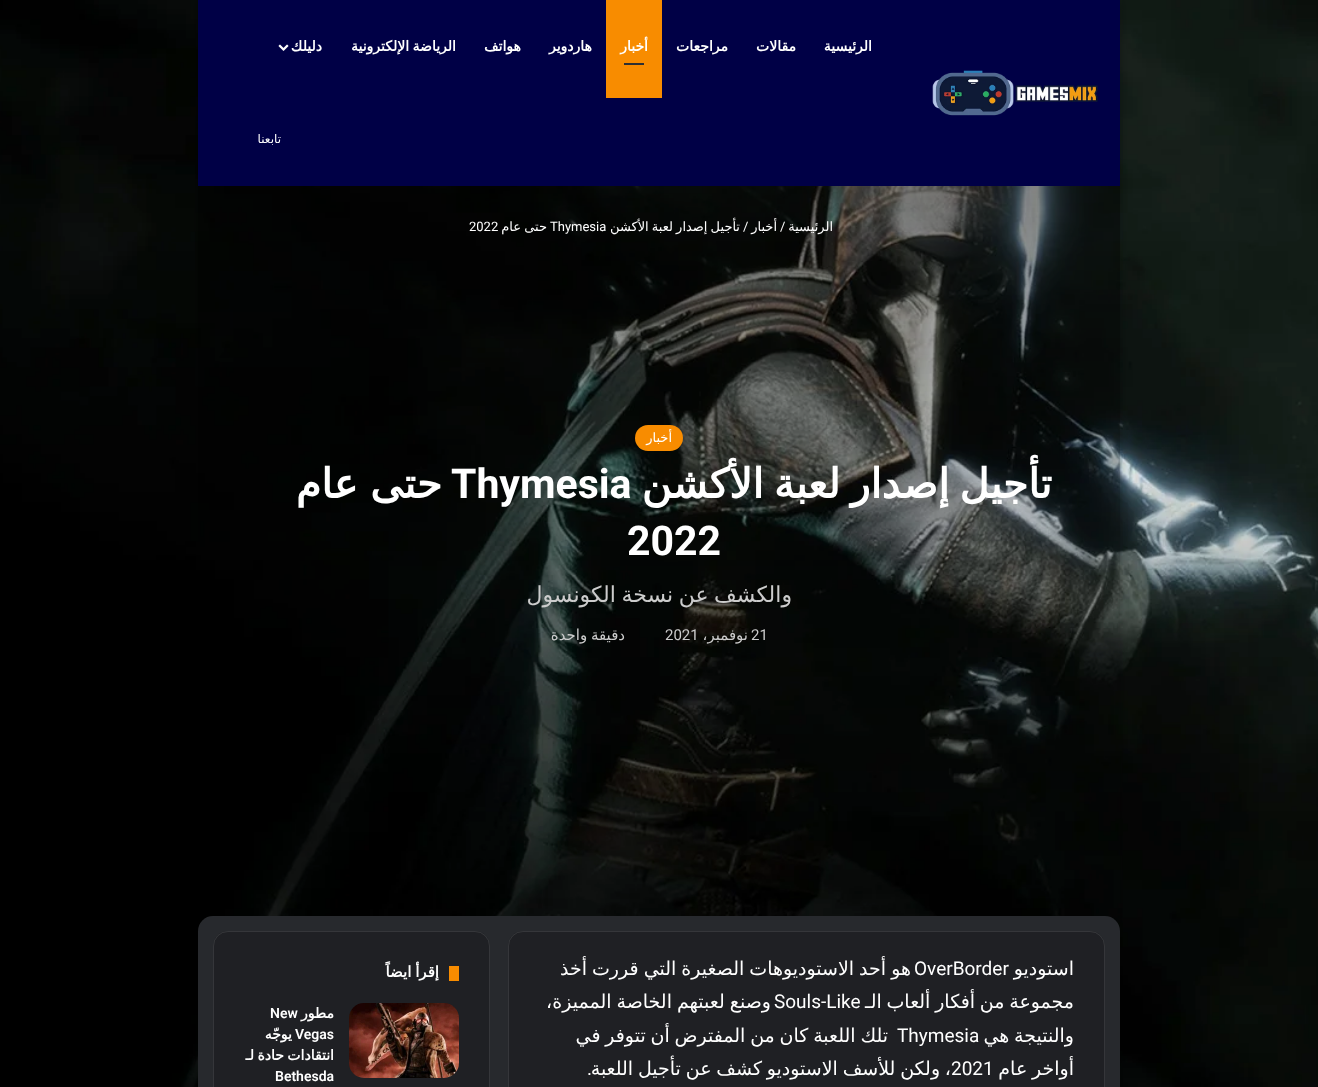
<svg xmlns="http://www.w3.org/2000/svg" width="1318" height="1087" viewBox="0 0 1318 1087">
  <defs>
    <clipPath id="clip1"><path d="M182 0H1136V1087H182ZM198 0H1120V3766H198Z" clip-rule="evenodd"/></clipPath>
    <filter id="blur1" x="-50%" y="-200%" width="200%" height="500%"><feGaussianBlur stdDeviation="5"/></filter>
  </defs>
  <rect width="100%" height="100%" fill="#ffffff"/>
  <image x="0" y="0" width="1318" height="1087" href="img1.png"/>
  <g clip-path="url(#clip1)">
    <rect x="198" y="1" width="922" height="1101" fill="#000000" fill-opacity="0.3" filter="url(#blur1)"/>
  </g>
  <rect x="198" y="0" width="922" height="186" fill="#000046"/>
  <image x="932" y="70" width="166" height="46" href="img2.png"/>
  <text x="872" y="51" font-family="DejaVu Sans" font-size="14" font-weight="bold" direction="rtl" fill="#ffffff">الرئيسية</text>
  <text x="796" y="51" font-family="DejaVu Sans" font-size="14" font-weight="bold" direction="rtl" fill="#ffffff">مقالات</text>
  <text x="728" y="51" font-family="DejaVu Sans" font-size="14" font-weight="bold" direction="rtl" fill="#ffffff">مراجعات</text>
  <rect x="606" y="0" width="56" height="98" fill="#f88c00"/>
  <text x="648" y="51" font-family="DejaVu Sans" font-size="14" font-weight="bold" direction="rtl" fill="#ffffff">أخبار</text>
  <rect x="624" y="63" width="20" height="2" fill="#2c2f34"/>
  <text x="592" y="51" font-family="DejaVu Sans" font-size="14" font-weight="bold" direction="rtl" fill="#ffffff">هاردوير</text>
  <text x="521" y="51" font-family="DejaVu Sans" font-size="14" font-weight="bold" direction="rtl" fill="#ffffff">هواتف</text>
  <text x="456" y="51" word-spacing="-1" font-family="DejaVu Sans" font-size="14" font-weight="bold" direction="rtl" fill="#ffffff">الرياضة الإلكترونية</text>
  <text x="322" y="51" font-family="DejaVu Sans" font-size="14" font-weight="bold" direction="rtl" fill="#ffffff">دليلك</text>
  <image x="278" y="44" width="11" height="7" href="img3.png"/>
  <text x="281" y="143" font-family="DejaVu Sans" font-size="12" direction="rtl" fill="#ffffff">تابعنا</text>
  <text x="833" y="231" font-family="DejaVu Sans" font-size="13" direction="rtl" fill="#ffffff">الرئيسية</text>
  <text x="780" y="231" font-family="Roboto" font-size="13" fill="#ffffff">/</text>
  <text x="777" y="231" font-family="DejaVu Sans" font-size="13" direction="rtl" fill="#ffffff">أخبار</text>
  <text x="743" y="231" font-family="Roboto" font-size="13" fill="#ffffff">/</text>
  <text x="740" y="231" word-spacing="-1" font-family="DejaVu Sans" font-size="13" direction="rtl" fill="#ffffff">تأجيل إصدار لعبة الأكشن</text>
  <text x="550" y="231" font-family="Roboto" font-size="13" fill="#ffffff">Thymesia</text>
  <text x="547" y="231" word-spacing="-1" font-family="DejaVu Sans" font-size="13" direction="rtl" fill="#ffffff">حتى عام</text>
  <text x="469" y="231" font-family="Roboto" font-size="13" fill="#ffffff">2022</text>
  <rect x="635" y="425" width="48" height="26" rx="13" fill="#f88c00"/>
  <text x="672" y="442" font-family="DejaVu Sans" font-size="13" direction="rtl" fill="#ffffff">أخبار</text>
  <text x="1052" y="498" word-spacing="-3" font-family="DejaVu Sans" font-size="41" font-weight="bold" direction="rtl" fill="#ffffff">تأجيل إصدار لعبة الأكشن</text>
  <text x="451" y="498" font-family="Roboto" font-size="41" font-weight="bold" fill="#ffffff">Thymesia</text>
  <text x="442" y="498" word-spacing="-1" font-family="DejaVu Sans" font-size="41" font-weight="bold" direction="rtl" fill="#ffffff">حتى عام</text>
  <text x="627" y="555" font-family="Roboto" font-size="41" font-weight="bold" fill="#ffffff">2022</text>
  <text x="792" y="602" word-spacing="-1.5" font-family="DejaVu Sans" font-size="22" direction="rtl" fill="#cccccc">والكشف عن نسخة الكونسول</text>
  <text x="751" y="640" font-family="Roboto" font-size="15" fill="#cccccc">21</text>
  <text x="748" y="640" font-family="DejaVu Sans" font-size="15" direction="rtl" fill="#cccccc">نوفمبر،</text>
  <text x="665" y="640" font-family="Roboto" font-size="15" fill="#cccccc">2021</text>
  <text x="625" y="640" word-spacing="-1" font-family="DejaVu Sans" font-size="15" direction="rtl" fill="#cccccc">دقيقة واحدة</text>
  <rect x="198" y="916" width="922" height="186" rx="15" fill="#27292d"/>
  <rect x="508" y="931" width="597" height="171" rx="15" fill="#1f2024"/>
  <rect x="508.5" y="931.5" width="596" height="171" rx="14.5" fill="none" stroke="#ffffff" stroke-opacity="0.1"/>
  <text x="1074" y="975" font-family="DejaVu Sans" font-size="19" direction="rtl" fill="#ffffff">استوديو</text>
  <text x="911" y="975" word-spacing="-1" font-family="DejaVu Sans" font-size="19" direction="rtl" fill="#ffffff">هو أحد الاستوديوهات الصغيرة التي قررت أخذ</text>
  <text x="914" y="975" font-family="Roboto" font-size="19" fill="#ffffff">OverBorder</text>
  <text x="1074" y="1008" word-spacing="-1.25" font-family="DejaVu Sans" font-size="19" direction="rtl" fill="#ffffff">مجموعة من أفكار ألعاب الـ</text>
  <text x="774" y="1008" font-family="Roboto" font-size="19" fill="#ffffff">Souls-Like</text>
  <text x="771" y="1008" word-spacing="-1" font-family="DejaVu Sans" font-size="19" direction="rtl" fill="#ffffff">وصنع لعبتهم الخاصة المميزة،</text>
  <text x="1074" y="1042" word-spacing="-1.25" font-family="DejaVu Sans" font-size="19" direction="rtl" fill="#ffffff">والنتيجة هي</text>
  <text x="897" y="1042" font-family="Roboto" font-size="19" fill="#ffffff">Thymesia</text>
  <text x="888" y="1042" word-spacing="-1.25" font-family="DejaVu Sans" font-size="19" direction="rtl" fill="#ffffff">تلك اللعبة كان من المفترض أن تتوفر في</text>
  <text x="1074" y="1075" word-spacing="-1.25" font-family="DejaVu Sans" font-size="19" direction="rtl" fill="#ffffff">أواخر عام</text>
  <text x="951" y="1075" word-spacing="-1.25" font-family="DejaVu Sans" font-size="19" direction="rtl" fill="#ffffff">، ولكن للأسف الاستوديو كشف عن تأجيل اللعبة</text>
  <text x="951" y="1075" font-family="Roboto" font-size="19" fill="#ffffff">2021</text>
  <text x="592" y="1075" font-family="Roboto" font-size="19" direction="rtl" fill="#ffffff">.</text>
  <rect x="213" y="931" width="277" height="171" rx="15" fill="#1f2024"/>
  <rect x="213.5" y="931.5" width="276" height="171" rx="14.5" fill="none" stroke="#ffffff" stroke-opacity="0.1"/>
  <rect x="449" y="966" width="10" height="15" fill="#f88c00"/>
  <text x="439" y="977" word-spacing="-1" font-family="DejaVu Sans" font-size="15" font-weight="bold" direction="rtl" fill="#ffffff">إقرأ ايضاً</text>
  <image x="349" y="1003" width="110" height="75" href="img4.png"/>
  <text x="334" y="1018" font-family="DejaVu Sans" font-size="14" font-weight="bold" direction="rtl" fill="#ffffff">مطور</text>
  <text x="270" y="1018" font-family="Roboto" font-size="14" font-weight="600" fill="#ffffff">New</text>
  <text x="295" y="1039" font-family="Roboto" font-size="14" font-weight="600" fill="#ffffff">Vegas</text>
  <text x="292" y="1039" font-family="DejaVu Sans" font-size="14" font-weight="bold" direction="rtl" fill="#ffffff">يوجّه</text>
  <text x="334" y="1060" word-spacing="-1" font-family="DejaVu Sans" font-size="14" font-weight="bold" direction="rtl" fill="#ffffff">انتقادات حادة لـ</text>
  <text x="275" y="1081" font-family="Roboto" font-size="14" font-weight="600" fill="#ffffff">Bethesda</text>
</svg>
